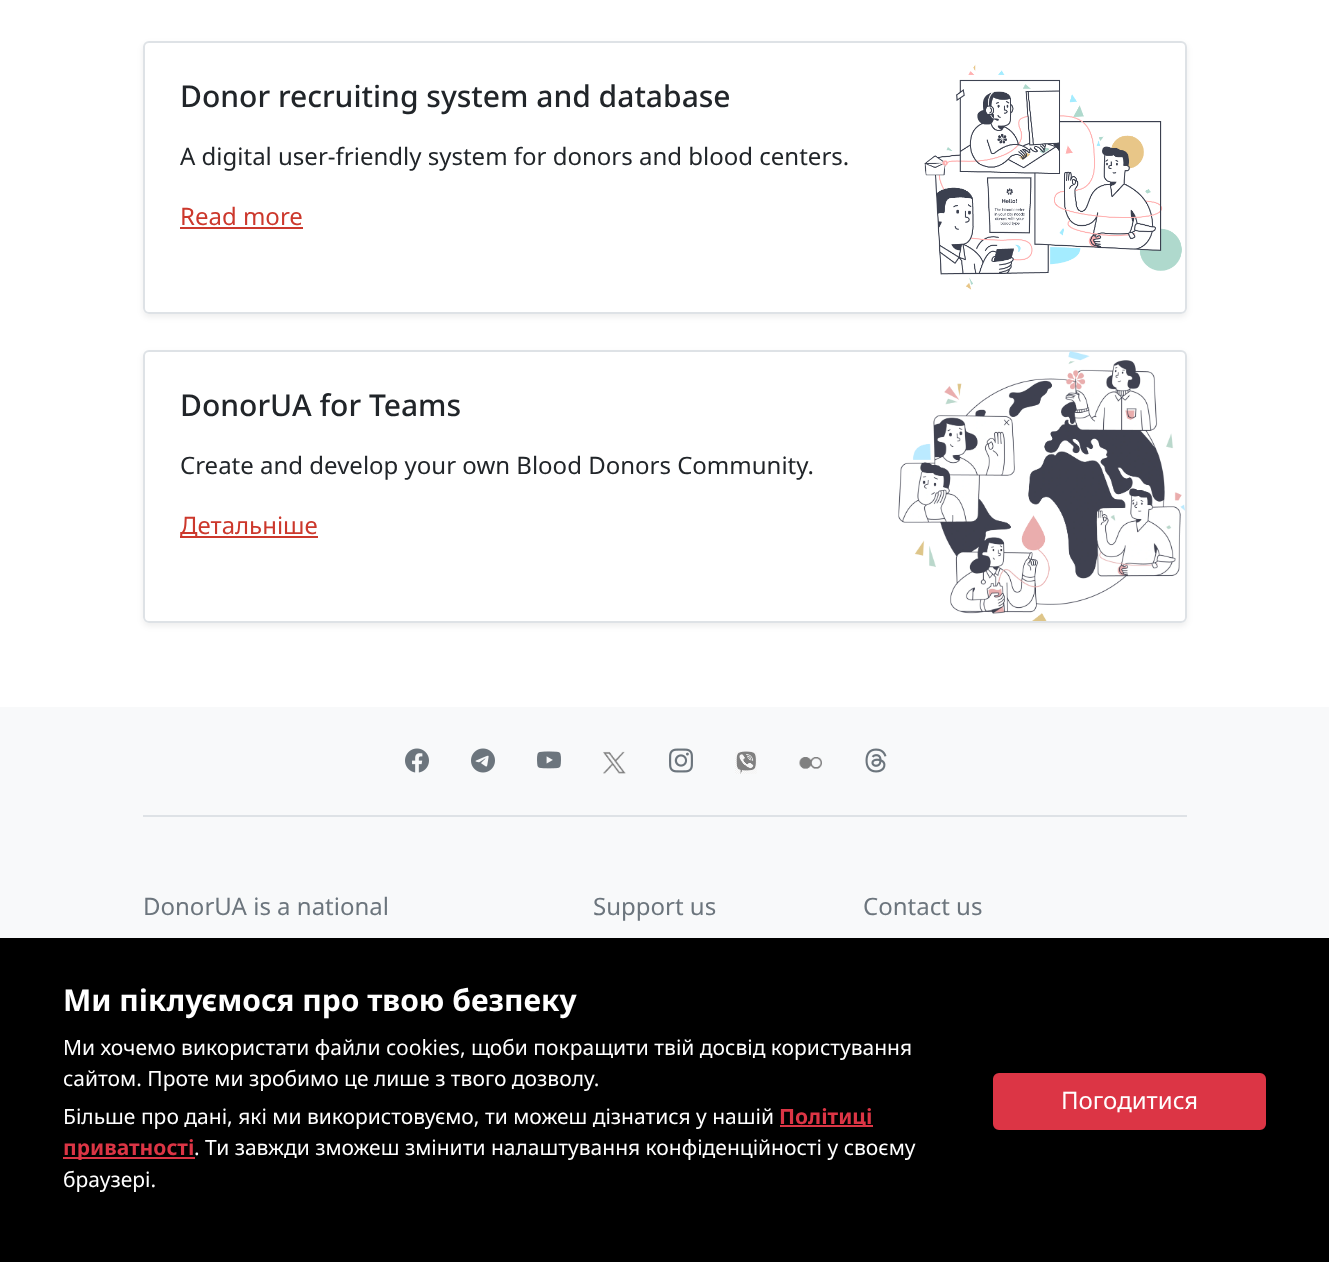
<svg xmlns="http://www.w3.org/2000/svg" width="1329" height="1262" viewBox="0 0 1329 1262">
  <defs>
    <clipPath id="clip1"><path d="M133 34H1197V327H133ZM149 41H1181C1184.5 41 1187 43.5 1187 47V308C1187 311.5 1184.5 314 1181 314H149C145.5 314 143 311.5 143 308V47C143 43.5 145.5 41 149 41Z" clip-rule="evenodd"/></clipPath>
    <filter id="blur1" x="-50%" y="-200%" width="200%" height="500%"><feGaussianBlur stdDeviation="3"/></filter>
    <clipPath id="clip2"><path d="M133 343H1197V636H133ZM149 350H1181C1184.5 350 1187 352.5 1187 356V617C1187 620.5 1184.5 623 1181 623H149C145.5 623 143 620.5 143 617V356C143 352.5 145.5 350 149 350Z" clip-rule="evenodd"/></clipPath>
  </defs>
  <rect width="100%" height="100%" fill="#ffffff"/>
  <g clip-path="url(#clip1)">
    <rect x="143" y="44" width="1044" height="273" rx="6" fill="#000000" fill-opacity="0.07" filter="url(#blur1)"/>
  </g>
  <rect x="144" y="42" width="1042" height="271" rx="5" fill="none" stroke="#dee2e6" stroke-width="2"/>
  <text x="180" y="107" font-family="Noto Sans" font-size="30" font-weight="500" fill="#212529">Donor recruiting system and database</text>
  <text x="180" y="165" font-family="Noto Sans" font-size="24" fill="#212529">A digital user-friendly system for donors and blood centers.</text>
  <text x="180" y="225" font-family="Noto Sans" font-size="24" fill="#cc382c">Read more</text>
  <rect x="180" y="227" width="123" height="2" fill="#cc382c"/>
  <image x="924" y="64" width="258" height="226" href="img1.png"/>
  <g clip-path="url(#clip2)">
    <rect x="143" y="353" width="1044" height="273" rx="6" fill="#000000" fill-opacity="0.07" filter="url(#blur1)"/>
  </g>
  <rect x="144" y="351" width="1042" height="271" rx="5" fill="none" stroke="#dee2e6" stroke-width="2"/>
  <text x="180" y="416" font-family="Noto Sans" font-size="30" font-weight="500" fill="#212529">DonorUA for Teams</text>
  <text x="180" y="474" font-family="Noto Sans" font-size="24" fill="#212529">Create and develop your own Blood Donors Community.</text>
  <rect x="180" y="536" width="138" height="2" fill="#cc382c"/>
  <text x="180" y="534" font-family="Noto Sans" font-size="24" fill="#cc382c">Детальніше</text>
  <image x="898" y="351" width="287" height="270" href="img2.png"/>
  <rect x="0" y="938" width="1329" height="324" fill="#000000"/>
  <text x="63" y="1011" font-family="Noto Sans" font-size="30" font-weight="bold" fill="#ffffff">Ми піклуємося про твою безпеку</text>
  <text x="63" y="1055" font-family="Noto Sans" font-size="21" fill="#ffffff">Ми хочемо використати файли cookies, щоби покращити твій досвід користування</text>
  <text x="63" y="1086" font-family="Noto Sans" font-size="21" fill="#ffffff">сайтом. Проте ми зробимо це лише з твого дозволу.</text>
  <text x="63" y="1124" font-family="Noto Sans" font-size="21" fill="#ffffff">Більше про дані, які ми використовуємо, ти можеш дізнатися у нашій</text>
  <rect x="780" y="1125" width="93" height="2" fill="#dc3545"/>
  <text x="779" y="1124" font-family="Noto Sans" font-size="21" font-weight="bold" fill="#dc3545">Політиці</text>
  <rect x="63" y="1157" width="132" height="2" fill="#dc3545"/>
  <text x="63" y="1155" font-family="Noto Sans" font-size="21" font-weight="bold" fill="#dc3545">приватності</text>
  <text x="194" y="1155" font-family="Noto Sans" font-size="21" fill="#ffffff">. Ти завжди зможеш змінити налаштування конфіденційності у своєму</text>
  <text x="63" y="1187" font-family="Noto Sans" font-size="21" fill="#ffffff">браузері.</text>
  <rect x="994" y="1074" width="271" height="55" rx="5" fill="#dc3545" stroke="#dc3545" stroke-width="2"/>
  <text x="1061" y="1109" font-family="Noto Sans" font-size="24" fill="#ffffff">Погодитися</text>
  <rect x="0" y="707" width="1329" height="231" fill="#f8f9fa"/>
  <rect x="143" y="815" width="1044" height="2" fill="#dee2e6"/>
  <image x="405" y="748" width="24" height="25" href="img3.png"/>
  <image x="471" y="748" width="24" height="25" href="img4.png"/>
  <image x="537" y="751" width="24" height="18" href="img5.png"/>
  <image x="603" y="751" width="23" height="23" href="img6.png"/>
  <image x="669" y="748" width="24" height="25" href="img7.png"/>
  <image x="735" y="751" width="22" height="23" href="img8.png"/>
  <image x="799" y="757" width="23" height="12" href="img9.png"/>
  <image x="865" y="748" width="22" height="25" href="img10.png"/>
  <text x="143" y="915" font-family="Noto Sans" font-size="24" fill="#6c757d">DonorUA is a national</text>
  <text x="593" y="915" font-family="Noto Sans" font-size="24" fill="#6c757d">Support us</text>
  <text x="863" y="915" font-family="Noto Sans" font-size="24" fill="#6c757d">Contact us</text>
</svg>
